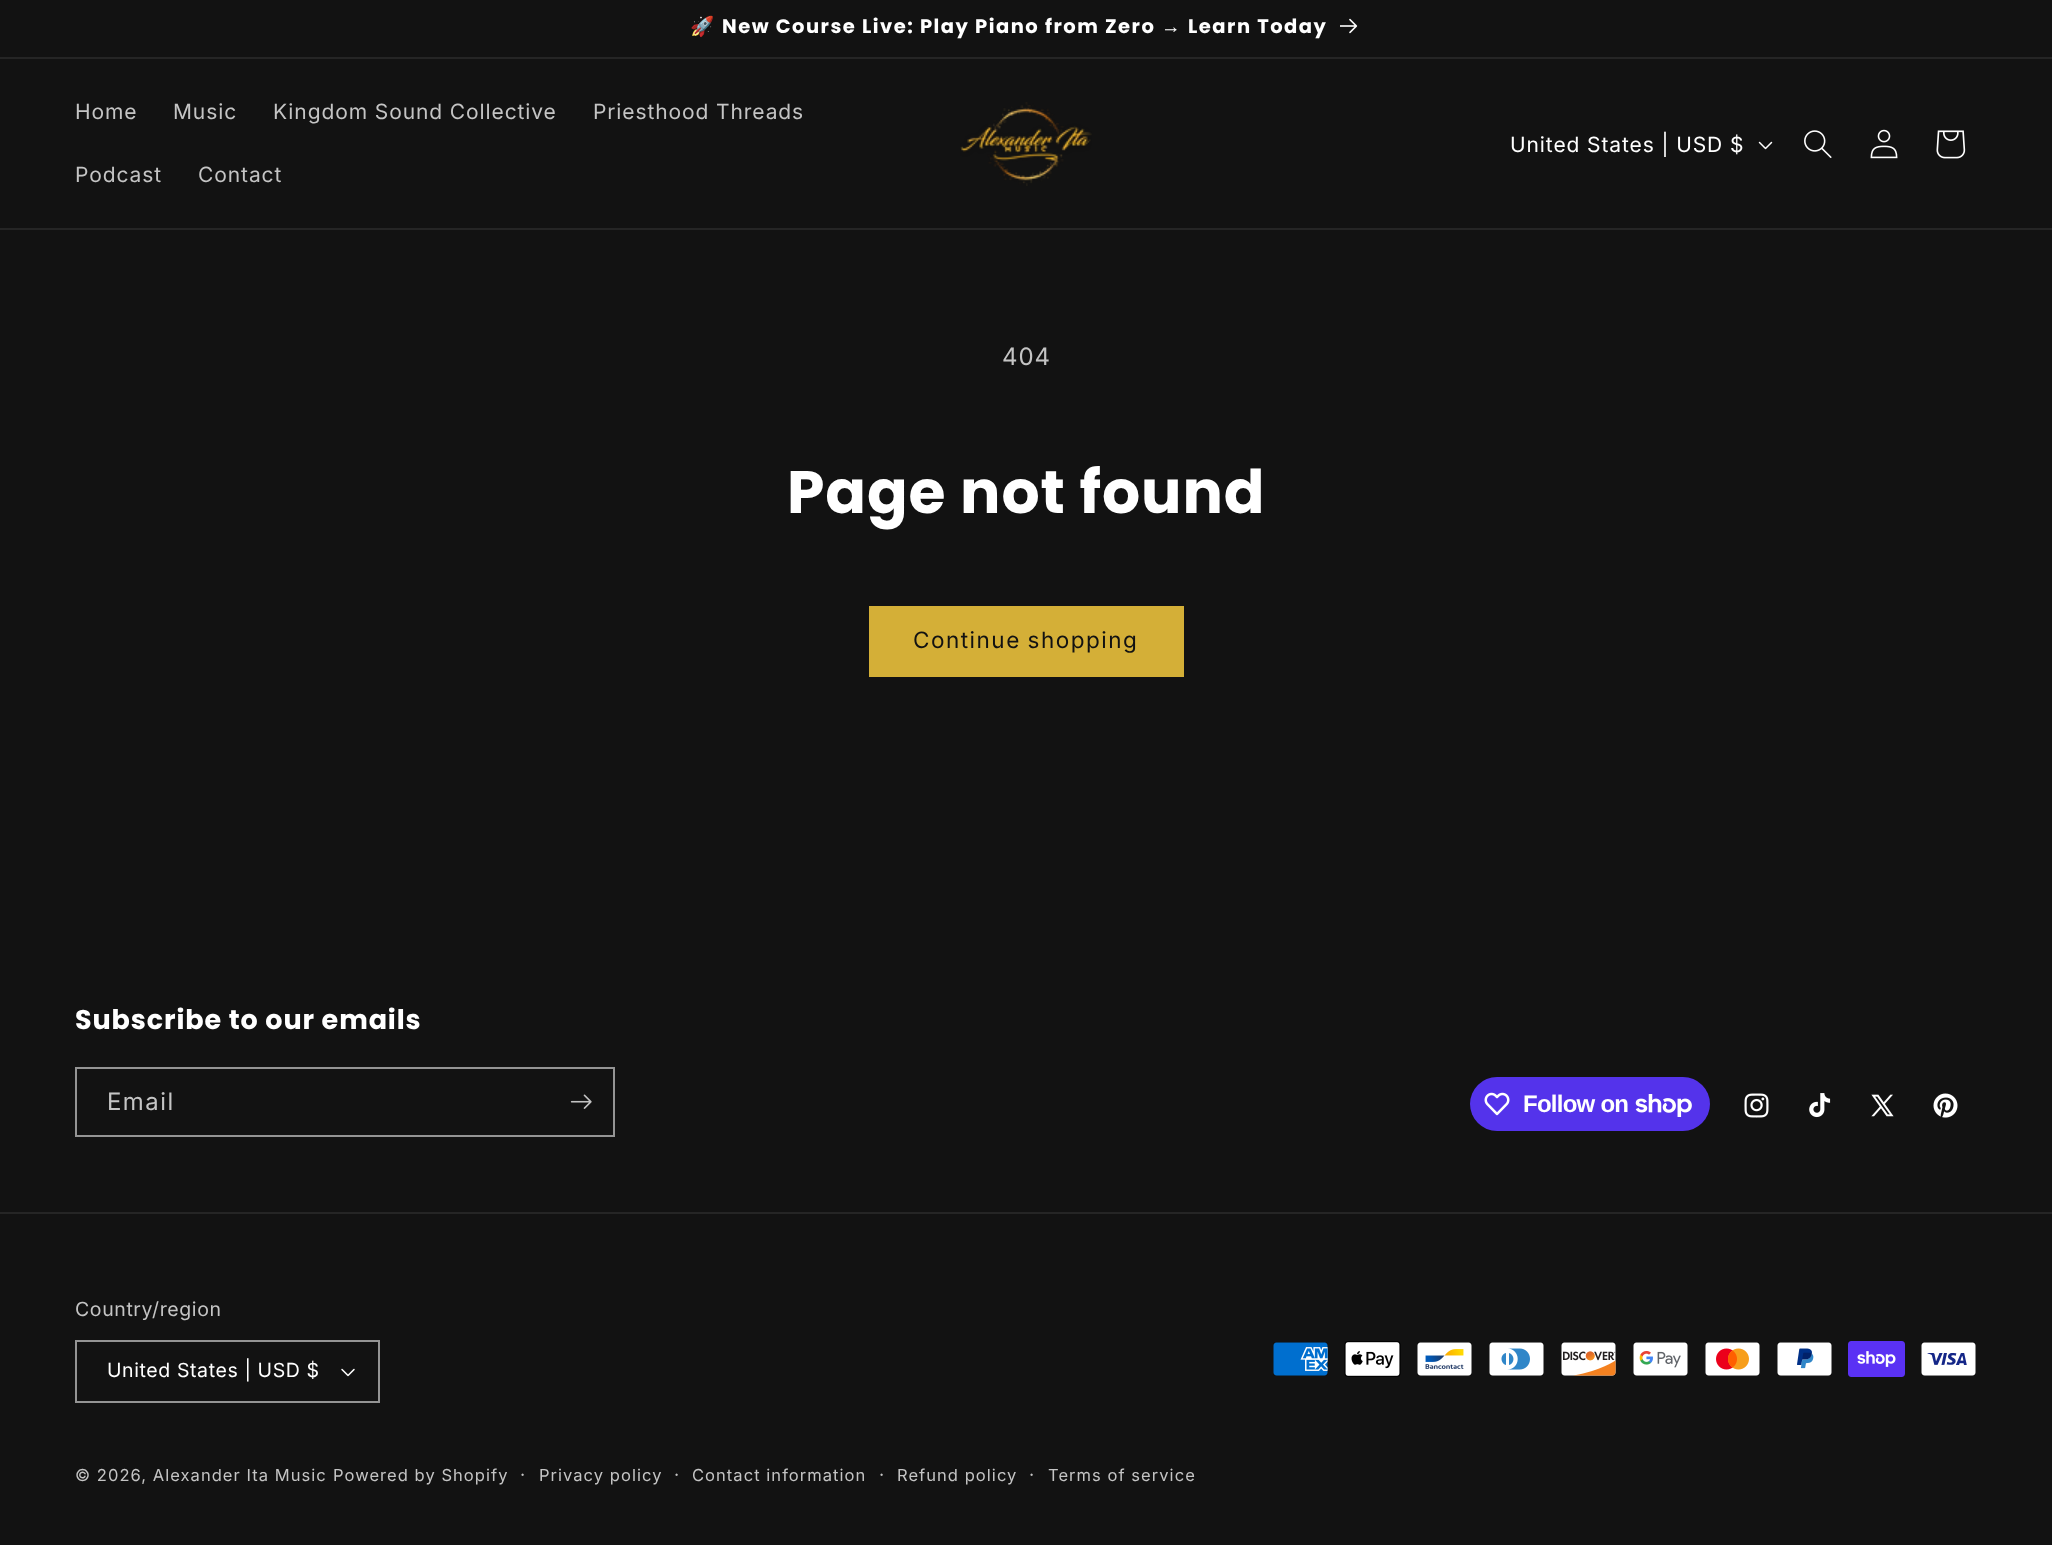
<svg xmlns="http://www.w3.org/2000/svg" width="2052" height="1545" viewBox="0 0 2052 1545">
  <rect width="100%" height="100%" fill="#121212"/>
  <rect x="0" y="57" width="2052" height="2" fill="#252525"/>
  <text x="690" y="33" font-family="Noto Color Emoji" font-size="19.5" font-weight="bold" letter-spacing="1.5" fill="#ffffff">🚀</text>
  <text x="722" y="33" font-family="Poppins" font-size="19.5" font-weight="bold" letter-spacing="1.5" fill="#ffffff">New Course Live: Play Piano from Zero</text>
  <text x="1161" y="33" font-family="Liberation Sans" font-size="19.5" font-weight="bold" letter-spacing="1.5" fill="#ffffff">→</text>
  <text x="1188" y="33" font-family="Poppins" font-size="19.5" font-weight="bold" letter-spacing="1.5" fill="#ffffff">Learn Today</text>
  <image x="1340" y="18" width="18" height="16" href="img1.png"/>
  <rect x="0" y="228" width="2052" height="2" fill="#252525"/>
  <text x="75" y="119" font-family="Inter" font-size="21" letter-spacing="0.9" fill="#c4c4c4">Home</text>
  <text x="173" y="119" font-family="Inter" font-size="21" letter-spacing="0.9" fill="#c4c4c4">Music</text>
  <text x="273" y="119" font-family="Inter" font-size="21" letter-spacing="0.9" fill="#c4c4c4">Kingdom Sound Collective</text>
  <text x="593" y="119" font-family="Inter" font-size="21" letter-spacing="0.9" fill="#c4c4c4">Priesthood Threads</text>
  <text x="75" y="182" font-family="Inter" font-size="21" letter-spacing="0.9" fill="#c4c4c4">Podcast</text>
  <text x="198" y="182" font-family="Inter" font-size="21" letter-spacing="0.9" fill="#c4c4c4">Contact</text>
  <image x="960" y="102" width="132" height="84" href="img2.png"/>
  <text x="1510" y="152" font-family="Inter" font-size="21" letter-spacing="0.9" fill="#ffffff">United States | USD $</text>
  <image x="1758" y="141" width="15" height="9" href="img3.png"/>
  <image x="1804" y="130" width="28" height="28" href="img4.png"/>
  <image x="1870" y="129" width="28" height="30" href="img5.png"/>
  <image x="1936" y="130" width="30" height="29" href="img6.png"/>
  <text x="1002" y="365" font-family="Inter" font-size="24" letter-spacing="0.9" fill="#c4c4c4">404</text>
  <text x="787" y="513" font-family="Poppins" font-size="60" font-weight="bold" letter-spacing="0.9" fill="#ffffff">Page not found</text>
  <rect x="869" y="606" width="315" height="71" fill="#d4af37"/>
  <text x="913" y="648" word-spacing="-1" font-family="Inter" font-size="22.5" letter-spacing="1.5" fill="#121212">Continue shopping</text>
  <text x="75" y="1029" font-family="Poppins" font-size="27" font-weight="bold" letter-spacing="0.9" fill="#ffffff">Subscribe to our emails</text>
  <rect x="76" y="1068" width="538" height="68" fill="none" stroke="#949494" stroke-width="2"/>
  <text x="107" y="1110" font-family="'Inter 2'" font-size="24" letter-spacing="1.5" fill="#c4c4c4">Email</text>
  <image x="570" y="1094" width="22" height="15" href="img7.png"/>
  <rect x="1470" y="1077" width="240" height="54" rx="27" fill="#5433eb"/>
  <image x="1484" y="1092" width="26" height="24" href="img8.png"/>
  <text x="1523" y="1112" font-family="Liberation Sans" font-size="24" font-weight="bold" letter-spacing="-0.75" fill="#ffffff">Follow on</text>
  <image x="1635" y="1094" width="57" height="23" href="img9.png"/>
  <image x="1744" y="1093" width="25" height="25" href="img10.png"/>
  <image x="1809" y="1093" width="22" height="25" href="img11.png"/>
  <image x="1871" y="1094" width="23" height="23" href="img12.png"/>
  <image x="1933" y="1093" width="25" height="25" href="img13.png"/>
  <rect x="0" y="1212" width="2052" height="2" fill="#252525"/>
  <text x="75" y="1316" font-family="Inter" font-size="19.5" letter-spacing="0.6" fill="#c4c4c4">Country/region</text>
  <image x="341" y="1368" width="14" height="9" href="img14.png"/>
  <rect x="76" y="1341" width="303" height="61" fill="none" stroke="#949494" stroke-width="2"/>
  <text x="107" y="1377" font-family="Inter" font-size="19.5" letter-spacing="0.6" fill="#ffffff">United States | USD $</text>
  <image x="1273" y="1342" width="55" height="34" href="img15.png"/>
  <image x="1344" y="1341" width="57" height="36" href="img16.png"/>
  <image x="1417" y="1342" width="55" height="34" href="img17.png"/>
  <image x="1489" y="1342" width="55" height="34" href="img18.png"/>
  <image x="1561" y="1342" width="55" height="34" href="img19.png"/>
  <image x="1633" y="1342" width="55" height="34" href="img20.png"/>
  <image x="1705" y="1342" width="55" height="34" href="img21.png"/>
  <image x="1777" y="1342" width="55" height="34" href="img22.png"/>
  <image x="1848" y="1341" width="57" height="36" href="img23.png"/>
  <image x="1921" y="1342" width="55" height="34" href="img24.png"/>
  <text x="75" y="1481" font-family="Inter" font-size="16.5" letter-spacing="1.05" fill="#c4c4c4">© 2026, Alexander Ita Music</text>
  <text x="333" y="1481" font-family="Inter" font-size="16.5" letter-spacing="1.05" fill="#c4c4c4">Powered by Shopify</text>
  <text x="520" y="1481" font-family="Inter" font-size="18" letter-spacing="1.05" fill="#c4c4c4">·</text>
  <text x="539" y="1481" font-family="Inter" font-size="16.5" letter-spacing="1.05" fill="#c4c4c4">Privacy policy</text>
  <text x="674" y="1481" font-family="Inter" font-size="18" letter-spacing="1.05" fill="#c4c4c4">·</text>
  <text x="692" y="1481" font-family="Inter" font-size="16.5" letter-spacing="1.05" fill="#c4c4c4">Contact information</text>
  <text x="879" y="1481" font-family="Inter" font-size="18" letter-spacing="1.05" fill="#c4c4c4">·</text>
  <text x="897" y="1481" font-family="Inter" font-size="16.5" letter-spacing="1.05" fill="#c4c4c4">Refund policy</text>
  <text x="1029" y="1481" font-family="Inter" font-size="18" letter-spacing="1.05" fill="#c4c4c4">·</text>
  <text x="1048" y="1481" font-family="Inter" font-size="16.5" letter-spacing="1.05" fill="#c4c4c4">Terms of service</text>
</svg>
